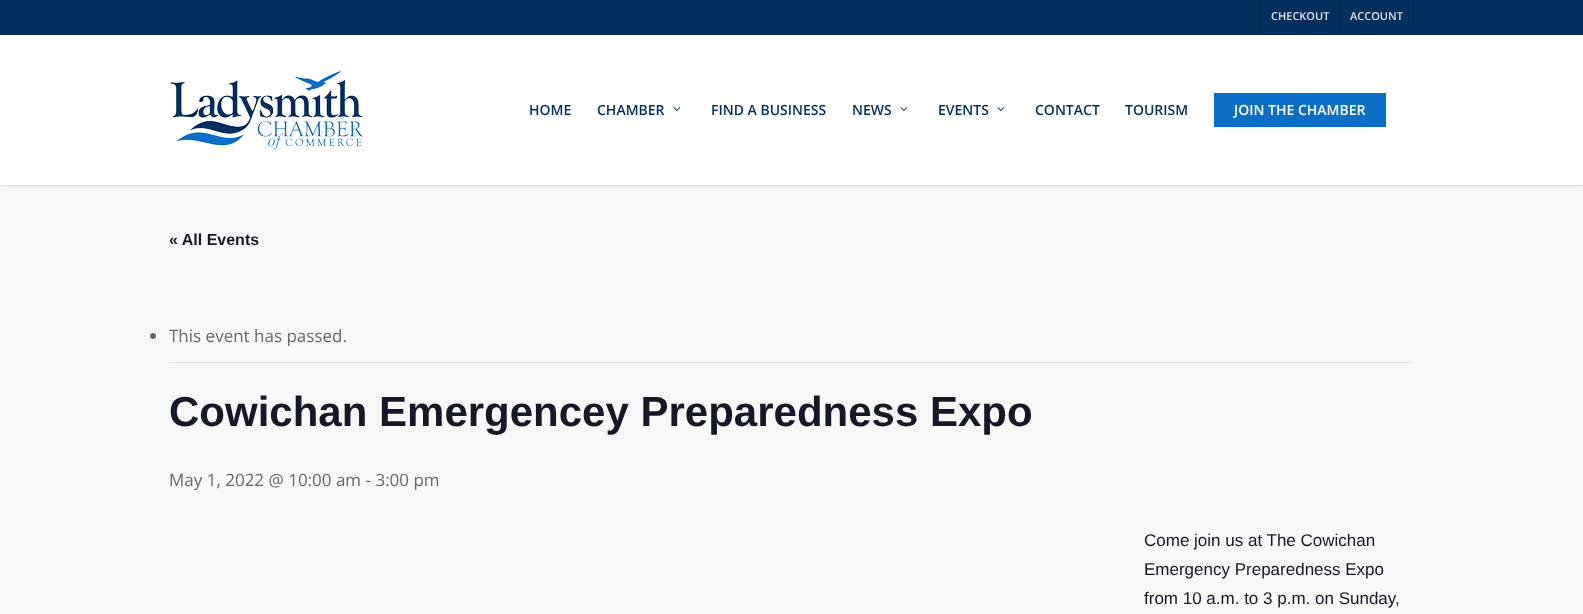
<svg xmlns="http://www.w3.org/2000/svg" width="1583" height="614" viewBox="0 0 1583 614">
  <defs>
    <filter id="blur1" x="-50%" y="-200%" width="200%" height="500%"><feGaussianBlur stdDeviation="1.5"/></filter>
  </defs>
  <rect width="100%" height="100%" fill="#f8f8f8"/>
  <rect x="0" y="0" width="1583" height="185" fill="#000000" fill-opacity="0.22" filter="url(#blur1)"/>
  <rect x="0" y="35" width="1583" height="150" fill="#ffffff"/>
  <rect x="0" y="0" width="1583" height="34" fill="#032f5e"/>
  <rect x="0" y="34" width="1583" height="1" fill="#032a55"/>
  <rect x="1260" y="0" width="1" height="31" fill="#032a55"/>
  <text x="1271" y="20" font-family="Open Sans" font-size="11" font-weight="600" fill="#e0e0e0">CHECKOUT</text>
  <rect x="1413" y="0" width="1" height="31" fill="#032a55"/>
  <rect x="1339" y="0" width="1" height="31" fill="#032a55"/>
  <text x="1350" y="20" font-family="Open Sans" font-size="11" font-weight="600" fill="#e0e0e0">ACCOUNT</text>
  <image x="170" y="70" width="193" height="80" href="img1.png"/>
  <text x="529" y="115" font-family="Open Sans" font-size="14" font-weight="600" fill="#032f5e">HOME</text>
  <text x="597" y="115" font-family="Open Sans" font-size="14" font-weight="600" fill="#032f5e">CHAMBER</text>
  <image x="673" y="107" width="8" height="4" href="img2.png"/>
  <text x="711" y="115" font-family="Open Sans" font-size="14" font-weight="600" fill="#032f5e">FIND A BUSINESS</text>
  <text x="852" y="115" font-family="Open Sans" font-size="14" font-weight="600" fill="#032f5e">NEWS</text>
  <image x="900" y="107" width="8" height="4" href="img2.png"/>
  <text x="938" y="115" font-family="Open Sans" font-size="14" font-weight="600" fill="#032f5e">EVENTS</text>
  <image x="997" y="107" width="8" height="4" href="img2.png"/>
  <text x="1035" y="115" font-family="Open Sans" font-size="14" font-weight="600" fill="#032f5e">CONTACT</text>
  <text x="1125" y="115" font-family="Open Sans" font-size="14" font-weight="600" fill="#032f5e">TOURISM</text>
  <rect x="1214" y="93" width="172" height="34" fill="#0b6fc7"/>
  <text x="1234" y="115" font-family="Open Sans" font-size="14" font-weight="600" fill="#ffffff">JOIN THE CHAMBER</text>
  <text x="169" y="245" font-family="Liberation Sans" font-size="16" font-weight="bold" fill="#141827">« All Events</text>
  <rect x="169" y="362" width="1245" height="1" fill="#e4e4e4"/>
  <circle cx="153" cy="336" r="3" fill="#676767"/>
  <text x="169" y="342" font-family="Open Sans" font-size="17" fill="#676767">This event has passed.</text>
  <text x="169" y="426" font-family="Liberation Sans" font-size="42" font-weight="bold" fill="#141827">Cowichan Emergencey Preparedness Expo</text>
  <text x="169" y="486" font-family="Open Sans" font-size="17" fill="#676767">May 1, 2022 @ 10:00 am - 3:00 pm</text>
  <text x="1144" y="546" font-family="Liberation Sans" font-size="17" fill="#141827">Come join us at The Cowichan</text>
  <text x="1144" y="575" font-family="Liberation Sans" font-size="17" fill="#141827">Emergency Preparedness Expo</text>
  <text x="1144" y="604" font-family="Liberation Sans" font-size="17" fill="#141827">from 10 a.m. to 3 p.m. on Sunday,</text>
</svg>
